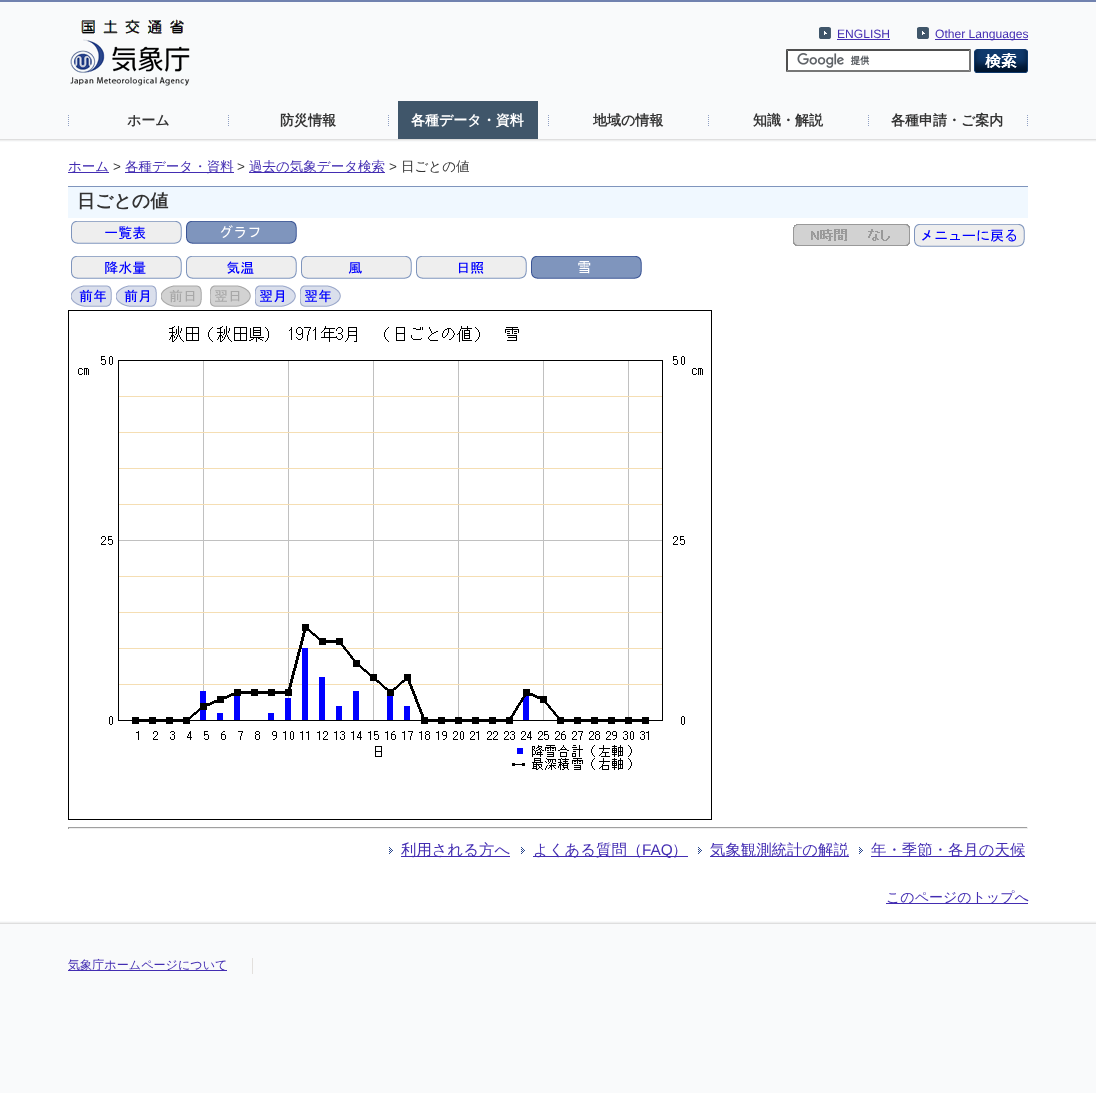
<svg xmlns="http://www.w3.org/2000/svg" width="1096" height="1093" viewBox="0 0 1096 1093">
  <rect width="100%" height="100%" fill="#f9fafb"/>
  <image x="0" y="139" width="1096" height="2" href="img1.png"/>
  <rect x="0" y="0" width="1096" height="2" fill="#7182af"/>
  <image x="70" y="19" width="120" height="67" href="img2.png"/>
  <image x="819" y="27" width="12" height="12" href="img3.png"/>
  <text x="837" y="38" font-family="Liberation Sans" font-size="12.1" fill="#432db2">ENGLISH</text>
  <rect x="837" y="39" width="53" height="1" fill="#432db2"/>
  <image x="917" y="27" width="12" height="12" href="img3.png"/>
  <rect x="935" y="39" width="93" height="1" fill="#432db2"/>
  <text x="935" y="38" font-family="Liberation Sans" font-size="12.1" fill="#432db2">Other Languages</text>
  <rect x="786" y="49" width="185" height="23" fill="#ffffff"/>
  <image x="797" y="53" width="73" height="15" href="img4.png"/>
  <path d="M786 49H971L969 51H788Z" fill="#4f4f4f"/>
  <path d="M971 49V72L969 70V51Z" fill="#767676"/>
  <path d="M971 72H786L788 70H969Z" fill="#767676"/>
  <path d="M786 72V49L788 51V70Z" fill="#4f4f4f"/>
  <image x="974" y="49" width="54" height="24" href="img5.png"/>
  <image x="1027" y="115" width="1" height="11" href="img6.png"/>
  <image x="68" y="115" width="1" height="11" href="img6.png"/>
  <text x="127" y="125" font-family="WenQuanYi Zen Hei" font-size="14" font-weight="bold" fill="#333333">ホーム</text>
  <image x="228" y="115" width="1" height="11" href="img6.png"/>
  <text x="280" y="125" font-family="WenQuanYi Zen Hei" font-size="14" font-weight="bold" fill="#333333">防災情報</text>
  <image x="388" y="115" width="1" height="11" href="img6.png"/>
  <rect x="398" y="101" width="140" height="38" fill="#40566a"/>
  <text x="411" y="125" font-family="WenQuanYi Zen Hei" font-size="14" font-weight="bold" fill="#ffffff">各種データ・資料</text>
  <image x="548" y="115" width="1" height="11" href="img6.png"/>
  <text x="593" y="125" font-family="WenQuanYi Zen Hei" font-size="14" font-weight="bold" fill="#333333">地域の情報</text>
  <image x="708" y="115" width="1" height="11" href="img6.png"/>
  <text x="753" y="125" font-family="WenQuanYi Zen Hei" font-size="14" font-weight="bold" fill="#333333">知識・解説</text>
  <image x="868" y="115" width="1" height="11" href="img6.png"/>
  <text x="891" y="125" font-family="WenQuanYi Zen Hei" font-size="14" font-weight="bold" fill="#333333">各種申請・ご案内</text>
  <rect x="0" y="142" width="1096" height="779" fill="#ffffff"/>
  <rect x="68" y="172" width="41" height="1" fill="#432db2"/>
  <text x="68" y="171" font-family="WenQuanYi Zen Hei" font-size="13.5" font-weight="500" fill="#432db2">ホーム</text>
  <text x="113" y="171" font-family="Liberation Sans" font-size="13.5" fill="#333333">&gt;</text>
  <rect x="125" y="172" width="109" height="1" fill="#432db2"/>
  <text x="125" y="171" font-family="WenQuanYi Zen Hei" font-size="13.5" font-weight="500" fill="#432db2">各種データ・資料</text>
  <text x="237" y="171" font-family="Liberation Sans" font-size="13.5" fill="#333333">&gt;</text>
  <rect x="249" y="172" width="136" height="1" fill="#432db2"/>
  <text x="249" y="171" font-family="WenQuanYi Zen Hei" font-size="13.5" font-weight="500" fill="#432db2">過去の気象データ検索</text>
  <text x="389" y="171" font-family="Liberation Sans" font-size="13.5" fill="#333333">&gt;</text>
  <text x="401" y="171" font-family="WenQuanYi Zen Hei" font-size="13.5" font-weight="500" fill="#333333">日ごとの値</text>
  <rect x="68" y="187" width="960" height="31" fill="#f0f8ff"/>
  <rect x="68" y="186" width="960" height="1" fill="#7f95bd"/>
  <text x="77" y="207" font-family="WenQuanYi Zen Hei" font-size="18" font-weight="bold" fill="#333333">日ごとの値</text>
  <image x="71" y="221" width="111" height="23" href="img7.png"/>
  <image x="186" y="221" width="111" height="23" href="img8.png"/>
  <image x="793" y="224" width="117" height="22" href="img9.png"/>
  <image x="914" y="224" width="111" height="23" href="img10.png"/>
  <image x="71" y="256" width="111" height="23" href="img11.png"/>
  <image x="186" y="256" width="111" height="23" href="img12.png"/>
  <image x="301" y="256" width="111" height="23" href="img13.png"/>
  <image x="416" y="256" width="111" height="23" href="img14.png"/>
  <image x="531" y="256" width="111" height="23" href="img15.png"/>
  <image x="71" y="285" width="41" height="22" href="img16.png"/>
  <image x="116" y="285" width="41" height="22" href="img17.png"/>
  <image x="161" y="285" width="41" height="22" href="img18.png"/>
  <image x="210" y="285" width="41" height="22" href="img19.png"/>
  <image x="255" y="285" width="41" height="22" href="img20.png"/>
  <image x="300" y="285" width="41" height="22" href="img21.png"/>
  <image x="68" y="310" width="644" height="510" href="img22.png"/>
  <rect x="68" y="827" width="960" height="1" fill="#9f9f9f"/>
  <rect x="1027" y="827" width="1" height="2" fill="#eeeeee"/>
  <rect x="68" y="828" width="960" height="1" fill="#eeeeee"/>
  <rect x="68" y="827" width="1" height="2" fill="#9f9f9f"/>
  <image x="389" y="847" width="4" height="7" href="img23.png"/>
  <rect x="401" y="856" width="109" height="1" fill="#432db2"/>
  <text x="401" y="855" font-family="WenQuanYi Zen Hei" font-size="15.4" font-weight="500" fill="#432db2">利用される方へ</text>
  <image x="521" y="847" width="4" height="7" href="img23.png"/>
  <rect x="533" y="856" width="155" height="1" fill="#432db2"/>
  <text x="533" y="855" font-family="WenQuanYi Zen Hei" font-size="15.4" font-weight="500" fill="#432db2">よくある質問（</text>
  <text x="642" y="855" font-family="Liberation Sans" font-size="15.4" fill="#432db2">FAQ</text>
  <text x="672" y="855" font-family="WenQuanYi Zen Hei" font-size="15.4" font-weight="500" fill="#432db2">）</text>
  <image x="698" y="847" width="4" height="7" href="img23.png"/>
  <rect x="710" y="856" width="139" height="1" fill="#432db2"/>
  <text x="710" y="855" font-family="WenQuanYi Zen Hei" font-size="15.4" font-weight="500" fill="#432db2">気象観測統計の解説</text>
  <image x="859" y="847" width="4" height="7" href="img23.png"/>
  <rect x="871" y="856" width="154" height="1" fill="#432db2"/>
  <text x="871" y="855" font-family="WenQuanYi Zen Hei" font-size="15.4" font-weight="500" fill="#432db2">年・季節・各月の天候</text>
  <rect x="886" y="903" width="142" height="1" fill="#432db2"/>
  <text x="886" y="902" font-family="WenQuanYi Zen Hei" font-size="14" font-weight="500" fill="#432db2">このページのトップへ</text>
  <image x="0" y="922" width="1096" height="2" href="img24.png"/>
  <rect x="252" y="958" width="1" height="16" fill="#e3e0dd"/>
  <rect x="68" y="970" width="159" height="1" fill="#432db2"/>
  <text x="68" y="969" font-family="WenQuanYi Zen Hei" font-size="12.1" font-weight="500" fill="#432db2">気象庁ホームページについて</text>
</svg>
